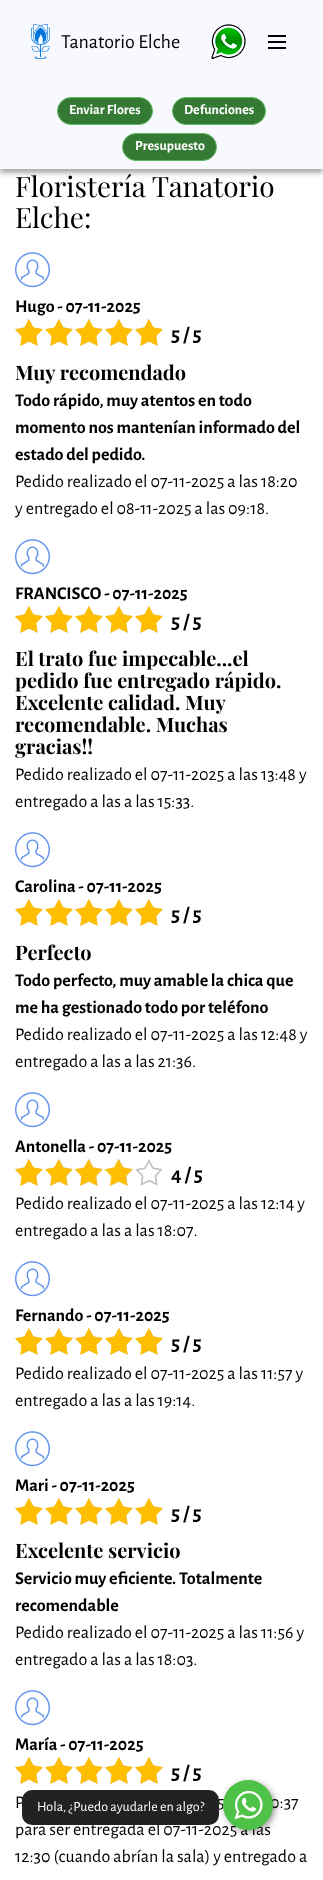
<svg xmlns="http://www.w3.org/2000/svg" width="323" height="1880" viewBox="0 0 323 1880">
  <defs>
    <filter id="blur1" x="-50%" y="-200%" width="200%" height="500%"><feGaussianBlur stdDeviation="2.5"/></filter>
    <filter id="blur2" x="-50%" y="-200%" width="200%" height="500%"><feGaussianBlur stdDeviation="3"/></filter>
  </defs>
  <rect width="100%" height="100%" fill="#ffffff"/>
  <rect x="0" y="87" width="323" height="86" fill="#aaaaaa" filter="url(#blur1)"/>
  <rect x="0" y="0" width="323" height="169" fill="#f8f8ff"/>
  <image x="31" y="24" width="19" height="35" href="img1.png"/>
  <text x="61" y="48" font-family="Alegreya Sans" font-size="20" fill="#000000">Tanatorio Elche</text>
  <image x="211" y="24" width="35" height="35" href="img2.png"/>
  <rect x="268" y="47" width="18" height="2" fill="#000000"/>
  <rect x="268" y="41" width="18" height="2" fill="#000000"/>
  <rect x="268" y="35" width="18" height="2" fill="#000000"/>
  <rect x="57.5" y="97.5" width="95" height="27" rx="13.5" fill="#347934" stroke="#5cb85c"/>
  <text x="69" y="114" font-family="Alegreya Sans" font-size="14" font-weight="bold" fill="#ffffff">Enviar Flores</text>
  <rect x="172.5" y="97.5" width="93" height="27" rx="13.5" fill="#347934" stroke="#5cb85c"/>
  <text x="184" y="114" font-family="Alegreya Sans" font-size="14" font-weight="bold" fill="#ffffff">Defunciones</text>
  <rect x="122.5" y="133.5" width="94" height="27" rx="13.5" fill="#347934" stroke="#5cb85c"/>
  <text x="135" y="150" font-family="Alegreya Sans" font-size="14" font-weight="bold" fill="#ffffff">Presupuesto</text>
  <text x="15" y="197" font-family="Playfair Display" font-size="28" fill="#000000">Floristería Tanatorio</text>
  <text x="15" y="228" font-family="Playfair Display" font-size="28" fill="#000000">Elche:</text>
  <image x="15" y="252" width="35" height="36" href="img3.png"/>
  <text x="15" y="312" font-family="Alegreya Sans" font-size="18" font-weight="bold" fill="#000000">Hugo - 07-11-2025</text>
  <image x="15" y="319" width="148" height="27" href="img4.png"/>
  <image x="15" y="319" width="148" height="27" href="img5.png"/>
  <text x="171" y="341" font-family="Alegreya Sans" font-size="21" font-weight="bold" fill="#000000">5 / 5</text>
  <text x="15" y="380" font-family="Playfair Display" font-size="20" font-weight="bold" fill="#000000">Muy recomendado</text>
  <text x="15" y="406" font-family="Alegreya Sans" font-size="18" font-weight="bold" fill="#000000">Todo rápido, muy atentos en todo</text>
  <text x="15" y="433" font-family="Alegreya Sans" font-size="18" font-weight="bold" fill="#000000">momento nos mantenían informado del</text>
  <text x="15" y="460" font-family="Alegreya Sans" font-size="18" font-weight="bold" fill="#000000">estado del pedido.</text>
  <text x="15" y="487" font-family="Alegreya Sans" font-size="18" fill="#000000">Pedido realizado el 07-11-2025 a las 18:20</text>
  <text x="15" y="514" font-family="Alegreya Sans" font-size="18" fill="#000000">y entregado el 08-11-2025 a las 09:18.</text>
  <image x="15" y="539" width="35" height="36" href="img3.png"/>
  <text x="15" y="599" font-family="Alegreya Sans" font-size="18" font-weight="bold" fill="#000000">FRANCISCO - 07-11-2025</text>
  <image x="15" y="606" width="148" height="27" href="img4.png"/>
  <image x="15" y="606" width="148" height="27" href="img5.png"/>
  <text x="171" y="628" font-family="Alegreya Sans" font-size="21" font-weight="bold" fill="#000000">5 / 5</text>
  <text x="15" y="666" font-family="Playfair Display" font-size="20" font-weight="bold" fill="#000000">El trato fue impecable...el</text>
  <text x="15" y="688" font-family="Playfair Display" font-size="20" font-weight="bold" fill="#000000">pedido fue entregado rápido.</text>
  <text x="15" y="710" font-family="Playfair Display" font-size="20" font-weight="bold" fill="#000000">Excelente calidad. Muy</text>
  <text x="15" y="732" font-family="Playfair Display" font-size="20" font-weight="bold" fill="#000000">recomendable. Muchas</text>
  <text x="15" y="754" font-family="Playfair Display" font-size="20" font-weight="bold" fill="#000000">gracias!!</text>
  <text x="15" y="780" font-family="Alegreya Sans" font-size="18" fill="#000000">Pedido realizado el 07-11-2025 a las 13:48 y</text>
  <text x="15" y="807" font-family="Alegreya Sans" font-size="18" fill="#000000">entregado a las a las 15:33.</text>
  <image x="15" y="832" width="35" height="36" href="img3.png"/>
  <text x="15" y="892" font-family="Alegreya Sans" font-size="18" font-weight="bold" fill="#000000">Carolina - 07-11-2025</text>
  <image x="15" y="899" width="148" height="27" href="img4.png"/>
  <image x="15" y="899" width="148" height="27" href="img5.png"/>
  <text x="171" y="921" font-family="Alegreya Sans" font-size="21" font-weight="bold" fill="#000000">5 / 5</text>
  <text x="15" y="960" font-family="Playfair Display" font-size="20" font-weight="bold" fill="#000000">Perfecto</text>
  <text x="15" y="986" font-family="Alegreya Sans" font-size="18" font-weight="bold" fill="#000000">Todo perfecto, muy amable la chica que</text>
  <text x="15" y="1013" font-family="Alegreya Sans" font-size="18" font-weight="bold" fill="#000000">me ha gestionado todo por teléfono</text>
  <text x="15" y="1040" font-family="Alegreya Sans" font-size="18" fill="#000000">Pedido realizado el 07-11-2025 a las 12:48 y</text>
  <text x="15" y="1067" font-family="Alegreya Sans" font-size="18" fill="#000000">entregado a las a las 21:36.</text>
  <image x="15" y="1092" width="35" height="36" href="img3.png"/>
  <text x="15" y="1152" font-family="Alegreya Sans" font-size="18" font-weight="bold" fill="#000000">Antonella - 07-11-2025</text>
  <image x="15" y="1159" width="148" height="27" href="img4.png"/>
  <image x="15" y="1159" width="118" height="27" href="img6.png"/>
  <text x="171" y="1181" font-family="Alegreya Sans" font-size="21" font-weight="bold" fill="#000000">4 / 5</text>
  <text x="15" y="1209" font-family="Alegreya Sans" font-size="18" fill="#000000">Pedido realizado el 07-11-2025 a las 12:14 y</text>
  <text x="15" y="1236" font-family="Alegreya Sans" font-size="18" fill="#000000">entregado a las a las 18:07.</text>
  <image x="15" y="1261" width="35" height="36" href="img3.png"/>
  <text x="15" y="1321" font-family="Alegreya Sans" font-size="18" font-weight="bold" fill="#000000">Fernando - 07-11-2025</text>
  <image x="15" y="1328" width="148" height="27" href="img4.png"/>
  <image x="15" y="1328" width="148" height="27" href="img5.png"/>
  <text x="171" y="1350" font-family="Alegreya Sans" font-size="21" font-weight="bold" fill="#000000">5 / 5</text>
  <text x="15" y="1379" font-family="Alegreya Sans" font-size="18" fill="#000000">Pedido realizado el 07-11-2025 a las 11:57 y</text>
  <text x="15" y="1406" font-family="Alegreya Sans" font-size="18" fill="#000000">entregado a las a las 19:14.</text>
  <image x="15" y="1431" width="35" height="36" href="img3.png"/>
  <text x="15" y="1491" font-family="Alegreya Sans" font-size="18" font-weight="bold" fill="#000000">Mari - 07-11-2025</text>
  <image x="15" y="1498" width="148" height="27" href="img4.png"/>
  <image x="15" y="1498" width="148" height="27" href="img5.png"/>
  <text x="171" y="1520" font-family="Alegreya Sans" font-size="21" font-weight="bold" fill="#000000">5 / 5</text>
  <text x="15" y="1558" font-family="Playfair Display" font-size="20" font-weight="bold" fill="#000000">Excelente servicio</text>
  <text x="15" y="1584" font-family="Alegreya Sans" font-size="18" font-weight="bold" fill="#000000">Servicio muy eficiente. Totalmente</text>
  <text x="15" y="1611" font-family="Alegreya Sans" font-size="18" font-weight="bold" fill="#000000">recomendable</text>
  <text x="15" y="1638" font-family="Alegreya Sans" font-size="18" fill="#000000">Pedido realizado el 07-11-2025 a las 11:56 y</text>
  <text x="15" y="1665" font-family="Alegreya Sans" font-size="18" fill="#000000">entregado a las a las 18:03.</text>
  <image x="15" y="1690" width="35" height="36" href="img3.png"/>
  <text x="15" y="1750" font-family="Alegreya Sans" font-size="18" font-weight="bold" fill="#000000">María - 07-11-2025</text>
  <image x="15" y="1757" width="148" height="27" href="img4.png"/>
  <image x="15" y="1757" width="148" height="27" href="img5.png"/>
  <text x="171" y="1779" font-family="Alegreya Sans" font-size="21" font-weight="bold" fill="#000000">5 / 5</text>
  <text x="15" y="1808" font-family="Alegreya Sans" font-size="18" fill="#000000">P</text>
  <text x="217" y="1808" font-family="Alegreya Sans" font-size="18" fill="#000000">5</text>
  <text x="270" y="1808" font-family="Alegreya Sans" font-size="18" fill="#000000">0:37</text>
  <text x="15" y="1835" font-family="Alegreya Sans" font-size="18" fill="#000000">para ser entregada el 07-11-2025 a las</text>
  <text x="15" y="1862" font-family="Alegreya Sans" font-size="18" fill="#000000">12:30 (cuando abrían la sala) y entregado a</text>
  <rect x="22" y="1790" width="197" height="35" rx="10" fill="#222222"/>
  <text x="37" y="1811" font-family="Alegreya Sans" font-size="14" fill="#ffffff">Hola, ¿Puedo ayudarle en algo?</text>
  <rect x="225" y="1782" width="50" height="50" rx="25" fill="#000000" fill-opacity="0.4" filter="url(#blur2)"/>
  <circle cx="248" cy="1805" r="25" fill="#4dc247"/>
  <image x="234" y="1790" width="29" height="30" href="img7.png"/>
</svg>
